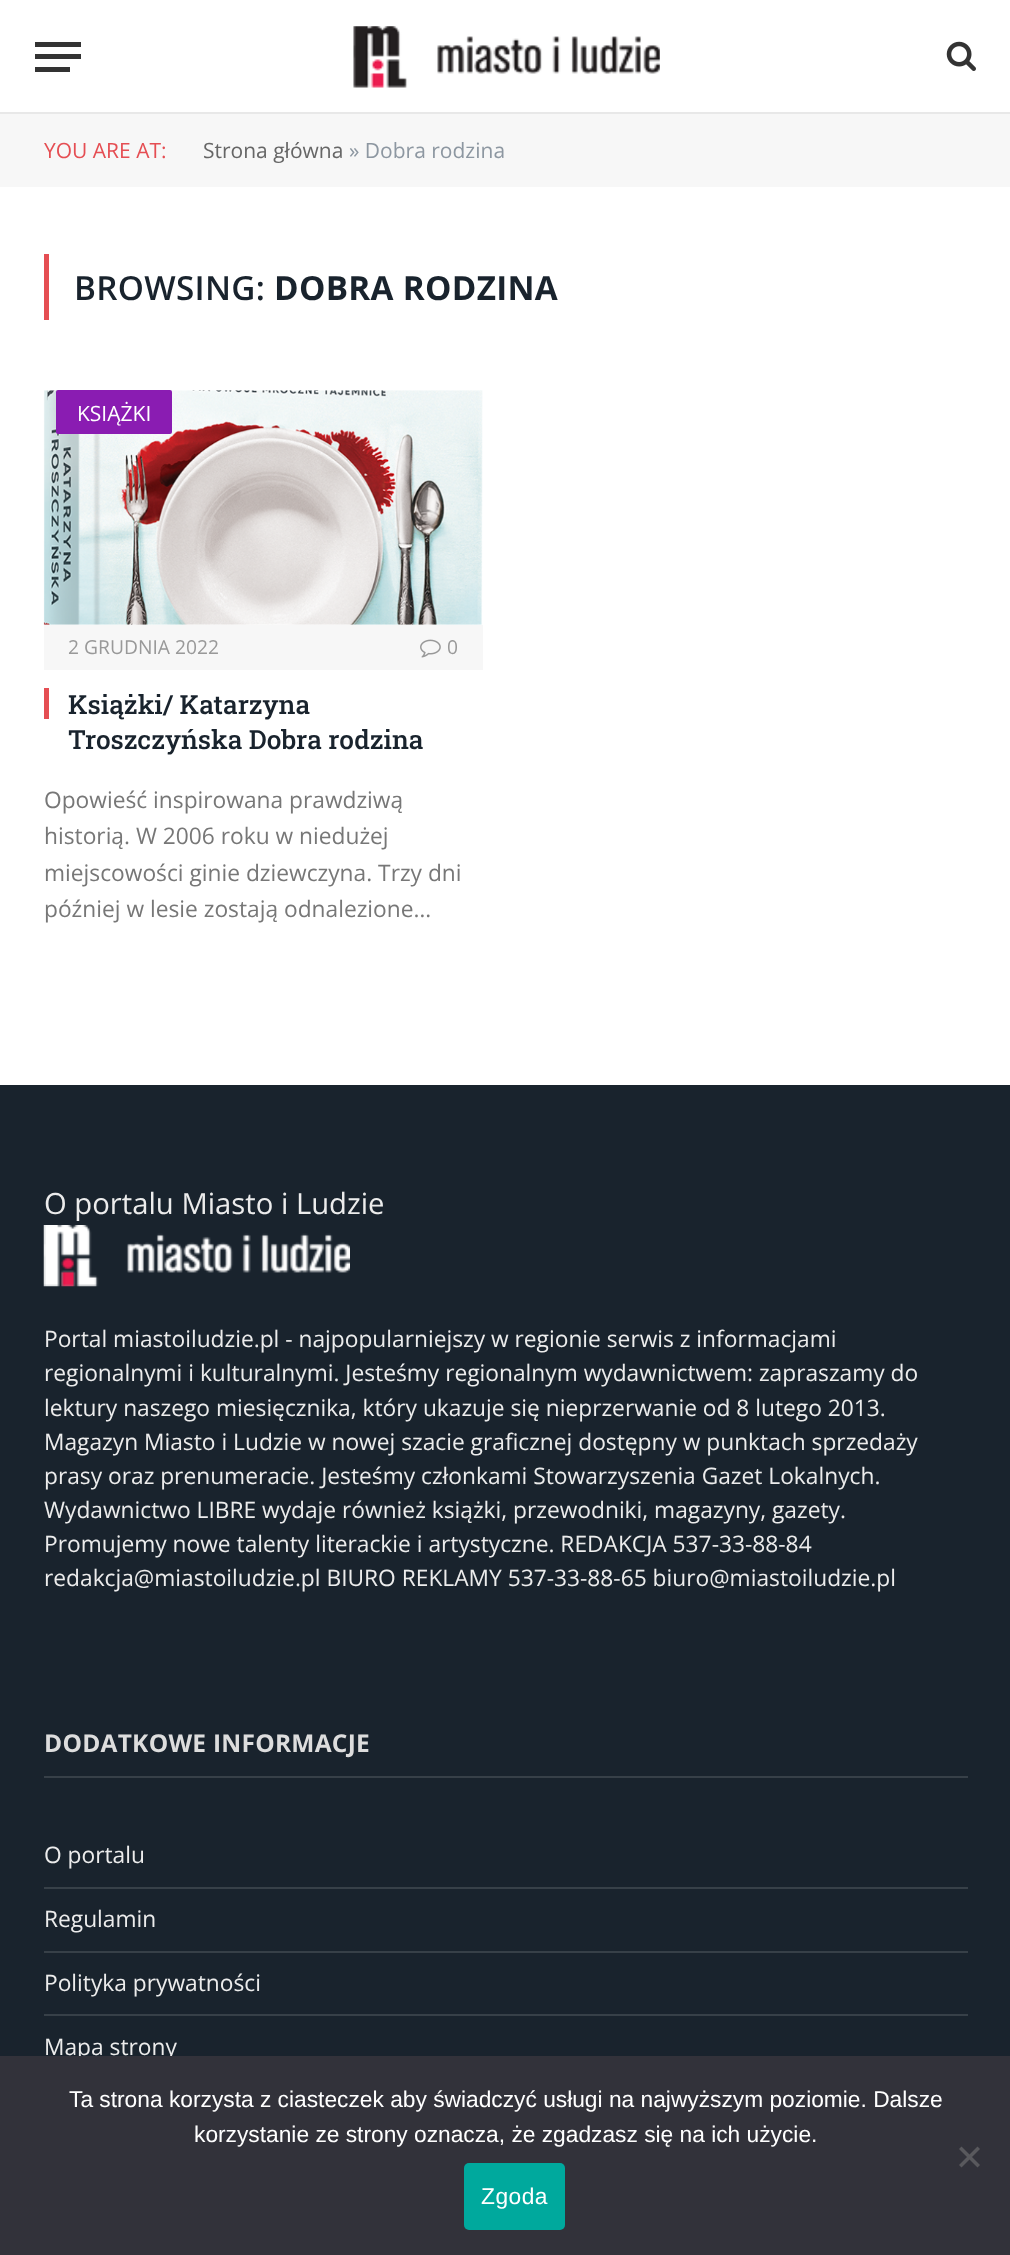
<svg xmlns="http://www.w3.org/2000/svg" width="1010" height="2255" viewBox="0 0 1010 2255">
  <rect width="100%" height="100%" fill="#ffffff"/>
  <rect x="0" y="112" width="1010" height="2" fill="#e8e8e8"/>
  <rect x="35" y="67" width="35" height="5" fill="#333333"/>
  <rect x="35" y="42" width="46" height="5" fill="#333333"/>
  <rect x="35" y="54" width="46" height="5" fill="#333333"/>
  <image x="353" y="26" width="307" height="62" href="img1.png"/>
  <image x="946" y="41" width="30" height="30" href="img2.png"/>
  <rect x="0" y="114" width="1010" height="73" fill="#f7f7f7"/>
  <text x="44" y="158" font-family="Open Sans" font-size="21" fill="#e54e53">YOU ARE AT:</text>
  <text x="203" y="158" font-family="Open Sans" font-size="21" fill="#666666">Strona główna</text>
  <text x="349" y="158" font-family="Open Sans" font-size="21" fill="#8d97a1">» Dobra rodzina</text>
  <rect x="44" y="254" width="5" height="66" fill="#e54e53"/>
  <text x="74" y="300" font-family="Open Sans" font-size="33.25" font-weight="600" letter-spacing="0.3" fill="#19232d">BROWSING:</text>
  <text x="274" y="300" font-family="Open Sans" font-size="33.25" font-weight="bold" letter-spacing="0.3" fill="#19232d">DOBRA RODZINA</text>
  <image x="43" y="390" width="440" height="235" href="img3.png"/>
  <rect x="56" y="390" width="116" height="44" rx="2" fill="#8a1cb2"/>
  <text x="77" y="421" font-family="Open Sans" font-size="21" fill="#ffffff">KSIĄŻKI</text>
  <rect x="44" y="625" width="439" height="45" fill="#f7f7f7"/>
  <text x="68" y="654" font-family="Open Sans" font-size="19.25" fill="#999999">2 GRUDNIA 2022</text>
  <image x="420" y="639" width="21" height="19" href="img4.png"/>
  <text x="447" y="654" font-family="Open Sans" font-size="19.25" fill="#999999">0</text>
  <rect x="44" y="688" width="5" height="31" fill="#e54e53"/>
  <text x="68" y="714" font-family="Roboto Slab" font-size="26.25" font-weight="500" fill="#19232d">Książki/ Katarzyna</text>
  <text x="68" y="749" font-family="Roboto Slab" font-size="26.25" font-weight="500" fill="#19232d">Troszczyńska Dobra rodzina</text>
  <text x="44" y="808" font-family="Open Sans" font-size="22.75" fill="#777777">Opowieść inspirowana prawdziwą</text>
  <text x="44" y="844" font-family="Open Sans" font-size="22.75" fill="#777777">historią. W 2006 roku w niedużej</text>
  <text x="44" y="881" font-family="Open Sans" font-size="22.75" fill="#777777">miejscowości ginie dziewczyna. Trzy dni</text>
  <text x="44" y="917" font-family="Open Sans" font-size="22.75" fill="#777777">później w lesie zostają odnalezione…</text>
  <rect x="0" y="1085" width="1010" height="971" fill="#19232d"/>
  <text x="44" y="1214" font-family="Open Sans" font-size="29.25" fill="#ececec">O portalu Miasto i Ludzie</text>
  <image x="43" y="1225" width="307" height="62" href="img5.png"/>
  <text x="44" y="1347" font-family="Open Sans" font-size="22.75" fill="#ececec">Portal miastoiludzie.pl - najpopularniejszy w regionie serwis z informacjami</text>
  <text x="44" y="1381" font-family="Open Sans" font-size="22.75" fill="#ececec">regionalnymi i kulturalnymi. Jesteśmy regionalnym wydawnictwem: zapraszamy do</text>
  <text x="44" y="1416" font-family="Open Sans" font-size="22.75" fill="#ececec">lektury naszego miesięcznika, który ukazuje się nieprzerwanie od 8 lutego 2013.</text>
  <text x="44" y="1450" font-family="Open Sans" font-size="22.75" fill="#ececec">Magazyn Miasto i Ludzie w nowej szacie graficznej dostępny w punktach sprzedaży</text>
  <text x="44" y="1484" font-family="Open Sans" font-size="22.75" fill="#ececec">prasy oraz prenumeracie. Jesteśmy członkami Stowarzyszenia Gazet Lokalnych.</text>
  <text x="44" y="1518" font-family="Open Sans" font-size="22.75" fill="#ececec">Wydawnictwo LIBRE wydaje również książki, przewodniki, magazyny, gazety.</text>
  <text x="44" y="1552" font-family="Open Sans" font-size="22.75" fill="#ececec">Promujemy nowe talenty literackie i artystyczne. REDAKCJA 537-33-88-84</text>
  <text x="44" y="1586" font-family="Open Sans" font-size="22.75" fill="#ececec">redakcja@miastoiludzie.pl BIURO REKLAMY 537-33-88-65 biuro@miastoiludzie.pl</text>
  <rect x="44" y="1776" width="924" height="2" fill="#374048"/>
  <text x="44" y="1752" font-family="Open Sans" font-size="24.5" font-weight="bold" letter-spacing="0.25" fill="#dddddd">DODATKOWE INFORMACJE</text>
  <rect x="44" y="1887" width="924" height="2" fill="#374048"/>
  <text x="44" y="1863" font-family="Open Sans" font-size="22.75" fill="#ececec">O portalu</text>
  <rect x="44" y="1951" width="924" height="2" fill="#374048"/>
  <text x="44" y="1927" font-family="Open Sans" font-size="22.75" fill="#ececec">Regulamin</text>
  <rect x="44" y="2014" width="924" height="2" fill="#374048"/>
  <text x="44" y="1991" font-family="Open Sans" font-size="22.75" fill="#ececec">Polityka prywatności</text>
  <text x="44" y="2055" font-family="Open Sans" font-size="22.75" fill="#ececec">Mapa strony</text>
  <rect x="0" y="2056" width="1010" height="199" fill="#32323a"/>
  <text x="69" y="2107" font-family="Liberation Sans" font-size="22.75" fill="#ffffff">Ta strona korzysta z ciasteczek aby świadczyć usługi na najwyższym poziomie. Dalsze</text>
  <text x="194" y="2142" font-family="Liberation Sans" font-size="22.75" fill="#ffffff">korzystanie ze strony oznacza, że zgadzasz się na ich użycie.</text>
  <path d="M977.5 2146.5L980 2149L961.5 2167.5L959 2165Z" fill="#59595d"/>
  <path d="M959 2149L961.5 2146.5L980 2165L977.5 2167.5Z" fill="#59595d"/>
  <rect x="464" y="2163" width="101" height="67" rx="5" fill="#00a99d"/>
  <text x="481" y="2204" font-family="Liberation Sans" font-size="22.75" letter-spacing="0.5" fill="#ffffff">Zgoda</text>
</svg>
